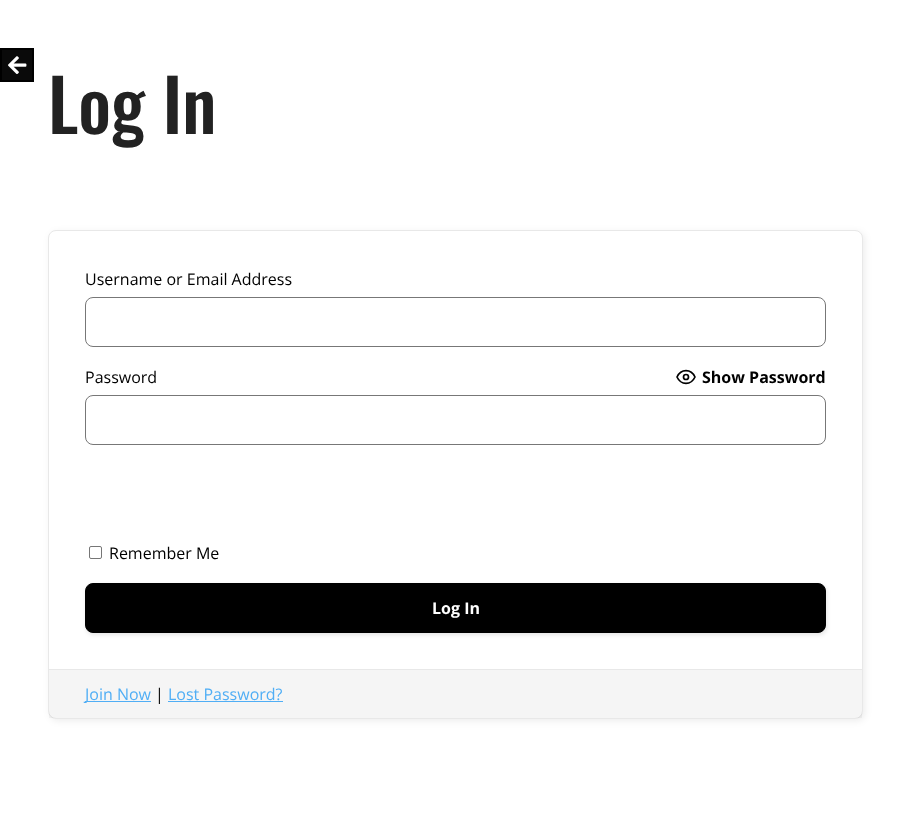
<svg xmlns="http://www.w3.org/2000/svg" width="911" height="828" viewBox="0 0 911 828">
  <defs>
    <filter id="blur1" x="-50%" y="-200%" width="200%" height="500%"><feGaussianBlur stdDeviation="3.5"/></filter>
    <filter id="blur2" x="-50%" y="-200%" width="200%" height="500%"><feGaussianBlur stdDeviation="2"/></filter>
  </defs>
  <rect width="100%" height="100%" fill="#ffffff"/>
  <rect x="1" y="49" width="32" height="32" fill="#0a0a0a" stroke="#000000" stroke-width="2"/>
  <image x="8" y="56" width="19" height="18" href="img1.png"/>
  <text x="48" y="134" font-family="Oswald" font-size="72" font-weight="500" fill="#222222">Log In</text>
  <rect x="50" y="232" width="815" height="489" rx="8" fill="#000000" fill-opacity="0.07" filter="url(#blur1)"/>
  <rect x="48.5" y="230.5" width="814" height="488" rx="7.5" fill="#ffffff" stroke="#e8e8e8"/>
  <text x="85" y="285" font-family="Open Sans" font-size="16" fill="#000000">Username or Email Address</text>
  <rect x="85.5" y="297.5" width="740" height="49" rx="7.5" fill="none" stroke="#777777"/>
  <text x="85" y="383" font-family="Open Sans" font-size="16" fill="#000000">Password</text>
  <path d="M677 377C681 368.5 691 368.5 695 377C691 385.5 681 385.5 677 377Z" fill="none" stroke="#000000" stroke-width="1.7" stroke-linecap="round" stroke-linejoin="round"/>
  <circle cx="686" cy="377" r="2.5" fill="none" stroke="#000000" stroke-width="1.7"/>
  <text x="702" y="383" font-family="Open Sans" font-size="16" font-weight="bold" fill="#000000">Show Password</text>
  <rect x="85.5" y="395.5" width="740" height="49" rx="7.5" fill="none" stroke="#777777"/>
  <rect x="89.5" y="546.5" width="12" height="12" rx="1.5" fill="none" stroke="#767676"/>
  <text x="109" y="559" font-family="Open Sans" font-size="16" fill="#000000">Remember Me</text>
  <rect x="86" y="585" width="741" height="50" rx="8" fill="#000000" fill-opacity="0.1" filter="url(#blur2)"/>
  <rect x="85.5" y="583.5" width="740" height="49" rx="7.5" fill="#000000" stroke="#000000"/>
  <text x="432" y="614" font-family="Open Sans" font-size="16" font-weight="bold" fill="#ffffff">Log In</text>
  <rect x="49" y="670" width="813" height="48" fill="#000000" fill-opacity="0.04"/>
  <rect x="49" y="669" width="813" height="1" fill="#e8e8e8"/>
  <rect x="85" y="701" width="66" height="1" fill="#50aef5"/>
  <text x="85" y="700" font-family="Open Sans" font-size="16" fill="#50aef5">Join Now</text>
  <text x="155" y="700" font-family="Open Sans" font-size="16" fill="#000000">|</text>
  <text x="168" y="700" font-family="Open Sans" font-size="16" fill="#50aef5">Lost Password?</text>
  <rect x="168" y="701" width="115" height="1" fill="#50aef5"/>
</svg>
